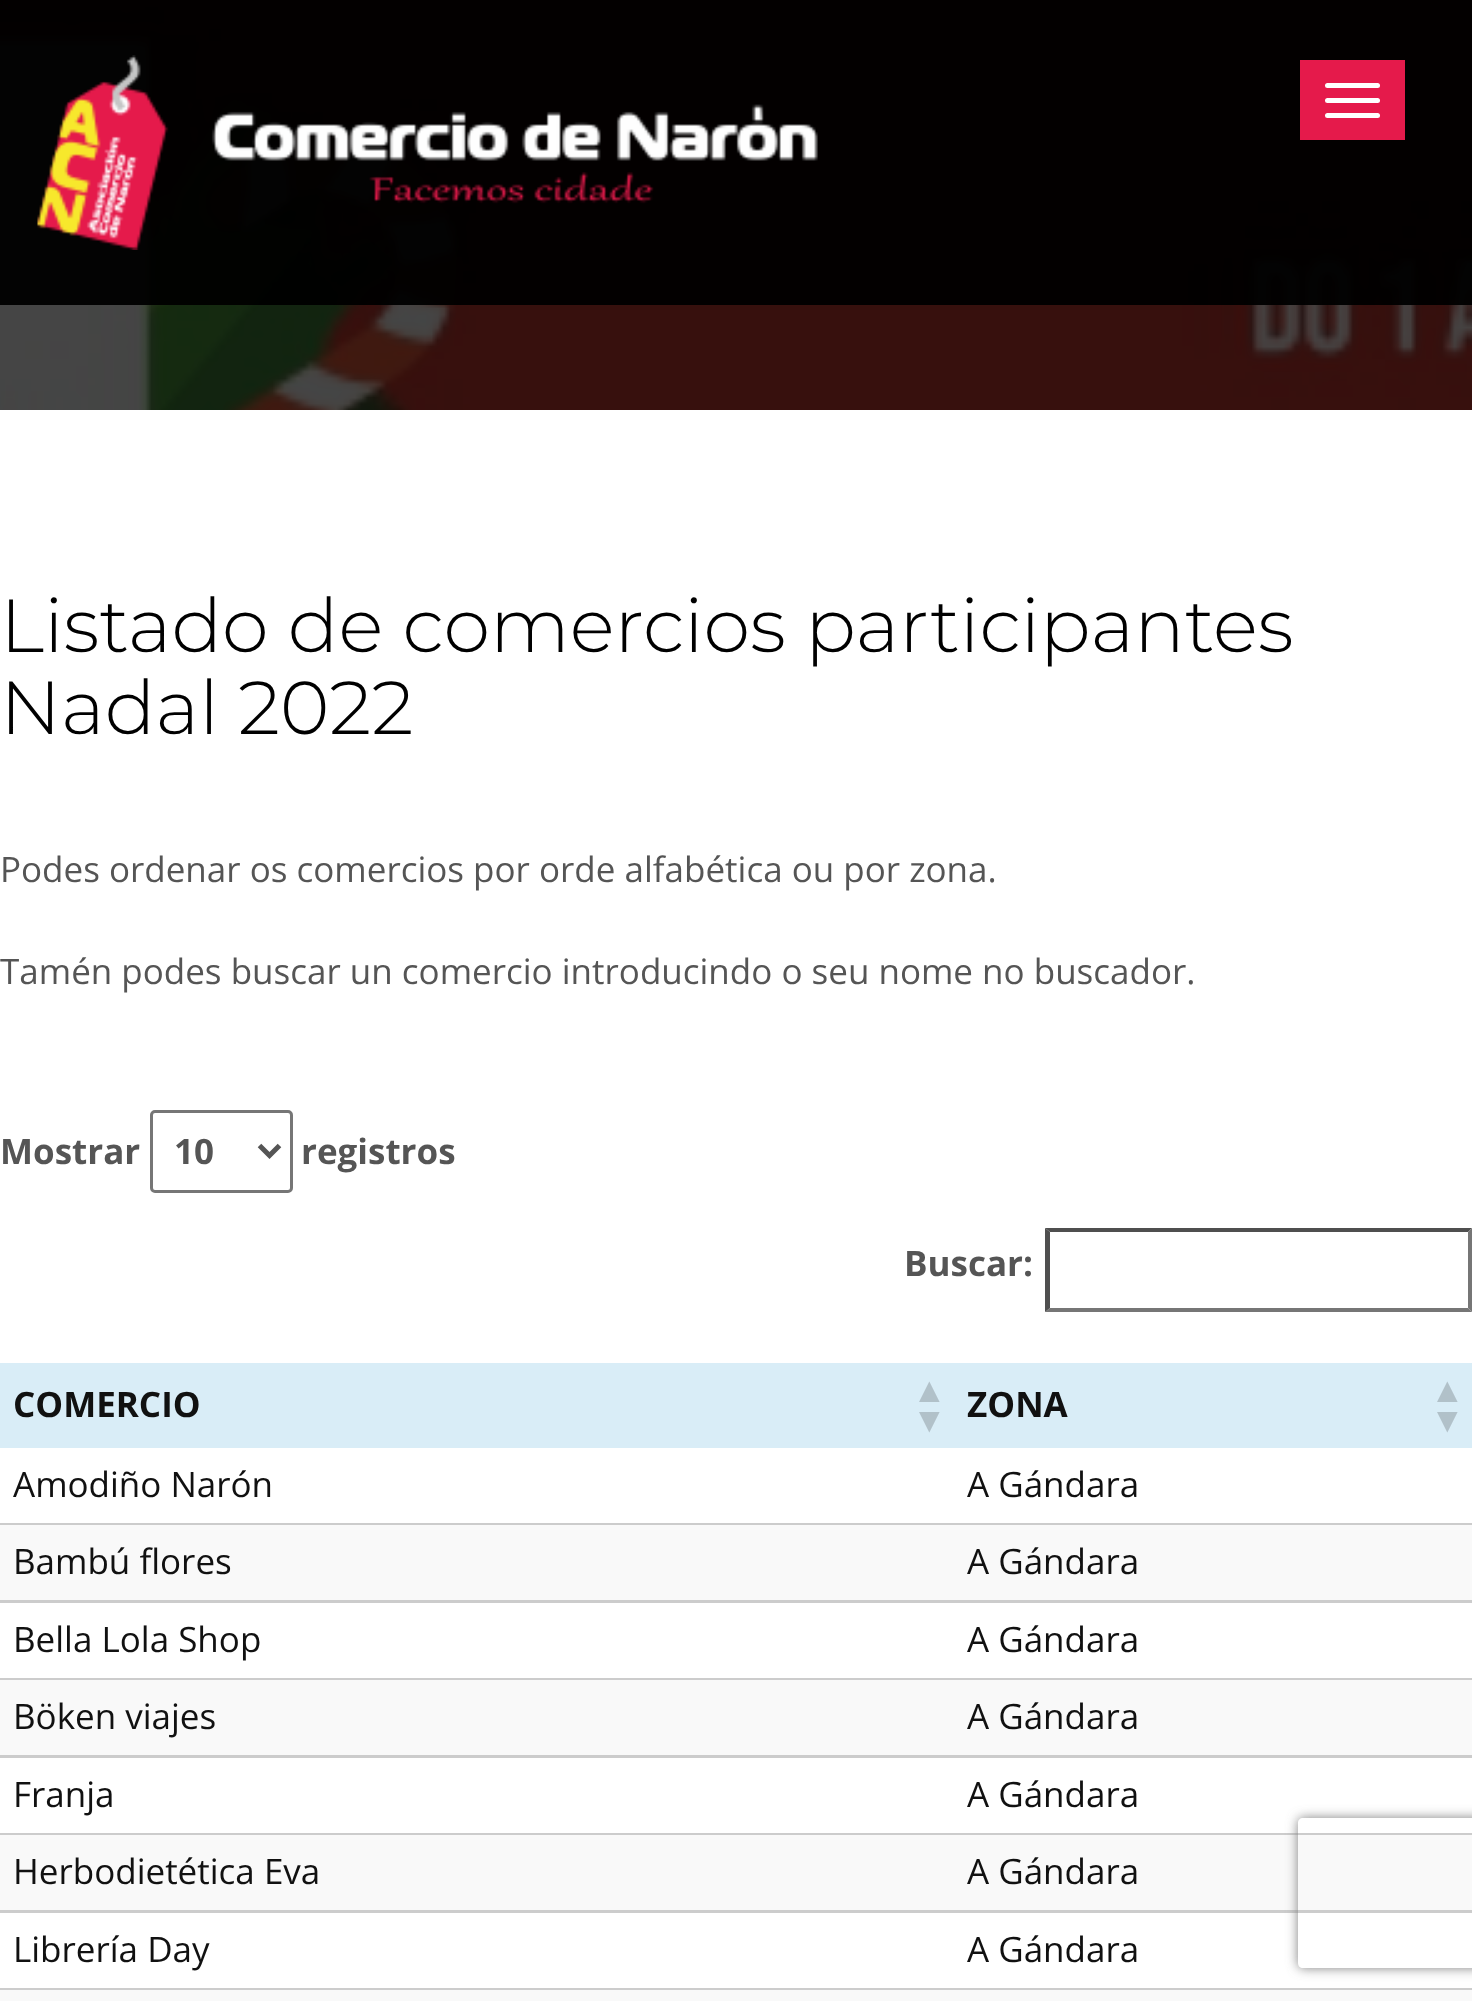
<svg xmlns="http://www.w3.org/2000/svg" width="1472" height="2001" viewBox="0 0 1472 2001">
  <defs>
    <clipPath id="clip1"><path d="M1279 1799H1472V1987H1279ZM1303 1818H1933C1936 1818 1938 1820 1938 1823V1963C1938 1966 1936 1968 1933 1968H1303C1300 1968 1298 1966 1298 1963V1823C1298 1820 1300 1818 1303 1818Z" clip-rule="evenodd"/></clipPath>
    <filter id="blur1" x="-50%" y="-200%" width="200%" height="500%"><feGaussianBlur stdDeviation="6"/></filter>
  </defs>
  <rect width="100%" height="100%" fill="#ffffff"/>
  <image x="0" y="0" width="1472" height="410" href="img1.png"/>
  <rect x="0" y="0" width="1472" height="305" fill="#000000" fill-opacity="0.95"/>
  <image x="37" y="55" width="781" height="195" href="img2.png"/>
  <rect x="1300" y="60" width="105" height="80" fill="#e51a4b"/>
  <rect x="1325" y="83" width="55" height="5" rx="2.5" fill="#ffffff"/>
  <rect x="1325" y="98" width="55" height="5" rx="2.5" fill="#ffffff"/>
  <rect x="1325" y="113" width="55" height="5" rx="2.5" fill="#ffffff"/>
  <text x="0" y="652" font-family="Montserrat" font-size="75" font-weight="300" fill="#000000">Listado de comercios participantes</text>
  <text x="0" y="734" font-family="Montserrat" font-size="75" font-weight="300" fill="#000000">Nadal 2022</text>
  <text x="0" y="882" font-family="Open Sans" font-size="35" fill="#555555">Podes ordenar os comercios por orde alfabética ou por zona.</text>
  <text x="0" y="984" font-family="Open Sans" font-size="35" fill="#555555">Tamén podes buscar un comercio introducindo o seu nome no buscador.</text>
  <text x="0" y="1164" font-family="Open Sans" font-size="35" font-weight="bold" fill="#555555">Mostrar</text>
  <rect x="151.5" y="1111.5" width="140" height="80" rx="3.5" fill="none" stroke="#767676" stroke-width="3"/>
  <path d="M259.5 1145.5L269.5 1155.5L279.5 1145.5" fill="none" stroke="#555555" stroke-width="5"/>
  <text x="174" y="1164" font-family="Open Sans" font-size="35" font-weight="bold" fill="#555555">10</text>
  <text x="301" y="1164" font-family="Open Sans" font-size="35" font-weight="bold" fill="#555555">registros</text>
  <text x="904" y="1276" font-family="Open Sans" font-size="35" font-weight="bold" fill="#555555">Buscar:</text>
  <path d="M1045 1228H1472L1468 1232H1050Z" fill="#4f4f4f"/>
  <path d="M1472 1228V1312L1468 1308V1232Z" fill="#767676"/>
  <path d="M1472 1312H1045L1050 1308H1468Z" fill="#767676"/>
  <path d="M1045 1312V1228L1050 1232V1308Z" fill="#4f4f4f"/>
  <rect x="0" y="1363" width="1472" height="85" fill="#d9edf7"/>
  <text x="13" y="1417" font-family="Open Sans" font-size="35" font-weight="bold" fill="#111111">COMERCIO</text>
  <text x="912" y="1402" font-family="Liberation Sans" font-size="35" font-weight="bold" fill="#b1c1c9">▲</text>
  <text x="912" y="1432" font-family="Liberation Sans" font-size="35" font-weight="bold" fill="#b1c1c9">▼</text>
  <text x="967" y="1417" font-family="Open Sans" font-size="35" font-weight="bold" fill="#111111">ZONA</text>
  <text x="1430" y="1402" font-family="Liberation Sans" font-size="35" font-weight="bold" fill="#b1c1c9">▲</text>
  <text x="1430" y="1432" font-family="Liberation Sans" font-size="35" font-weight="bold" fill="#b1c1c9">▼</text>
  <rect x="0" y="1523" width="1472" height="2" fill="#cccccc"/>
  <text x="13" y="1497" font-family="Open Sans" font-size="35" fill="#111111">Amodiño Narón</text>
  <text x="967" y="1497" font-family="Open Sans" font-size="35" fill="#111111">A Gándara</text>
  <rect x="0" y="1525" width="1472" height="75" fill="#f9f9f9"/>
  <rect x="0" y="1600" width="1472" height="3" fill="#cccccc"/>
  <text x="13" y="1574" font-family="Open Sans" font-size="35" fill="#111111">Bambú flores</text>
  <text x="967" y="1574" font-family="Open Sans" font-size="35" fill="#111111">A Gándara</text>
  <rect x="0" y="1678" width="1472" height="2" fill="#cccccc"/>
  <text x="13" y="1652" font-family="Open Sans" font-size="35" fill="#111111">Bella Lola Shop</text>
  <text x="967" y="1652" font-family="Open Sans" font-size="35" fill="#111111">A Gándara</text>
  <rect x="0" y="1680" width="1472" height="75" fill="#f9f9f9"/>
  <rect x="0" y="1755" width="1472" height="3" fill="#cccccc"/>
  <text x="13" y="1729" font-family="Open Sans" font-size="35" fill="#111111">Böken viajes</text>
  <text x="967" y="1729" font-family="Open Sans" font-size="35" fill="#111111">A Gándara</text>
  <rect x="0" y="1833" width="1472" height="2" fill="#cccccc"/>
  <text x="13" y="1807" font-family="Open Sans" font-size="35" fill="#111111">Franja</text>
  <text x="967" y="1807" font-family="Open Sans" font-size="35" fill="#111111">A Gándara</text>
  <rect x="0" y="1835" width="1472" height="75" fill="#f9f9f9"/>
  <rect x="0" y="1910" width="1472" height="3" fill="#cccccc"/>
  <text x="13" y="1884" font-family="Open Sans" font-size="35" fill="#111111">Herbodietética Eva</text>
  <text x="967" y="1884" font-family="Open Sans" font-size="35" fill="#111111">A Gándara</text>
  <rect x="0" y="1988" width="1472" height="2" fill="#cccccc"/>
  <text x="13" y="1962" font-family="Open Sans" font-size="35" fill="#111111">Librería Day</text>
  <text x="967" y="1962" font-family="Open Sans" font-size="35" fill="#111111">A Gándara</text>
  <rect x="0" y="1990" width="1472" height="11" fill="#f9f9f9"/>
  <g clip-path="url(#clip1)">
    <rect x="1298" y="1818" width="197" height="150" rx="5" fill="#808080" filter="url(#blur1)"/>
  </g>
</svg>
